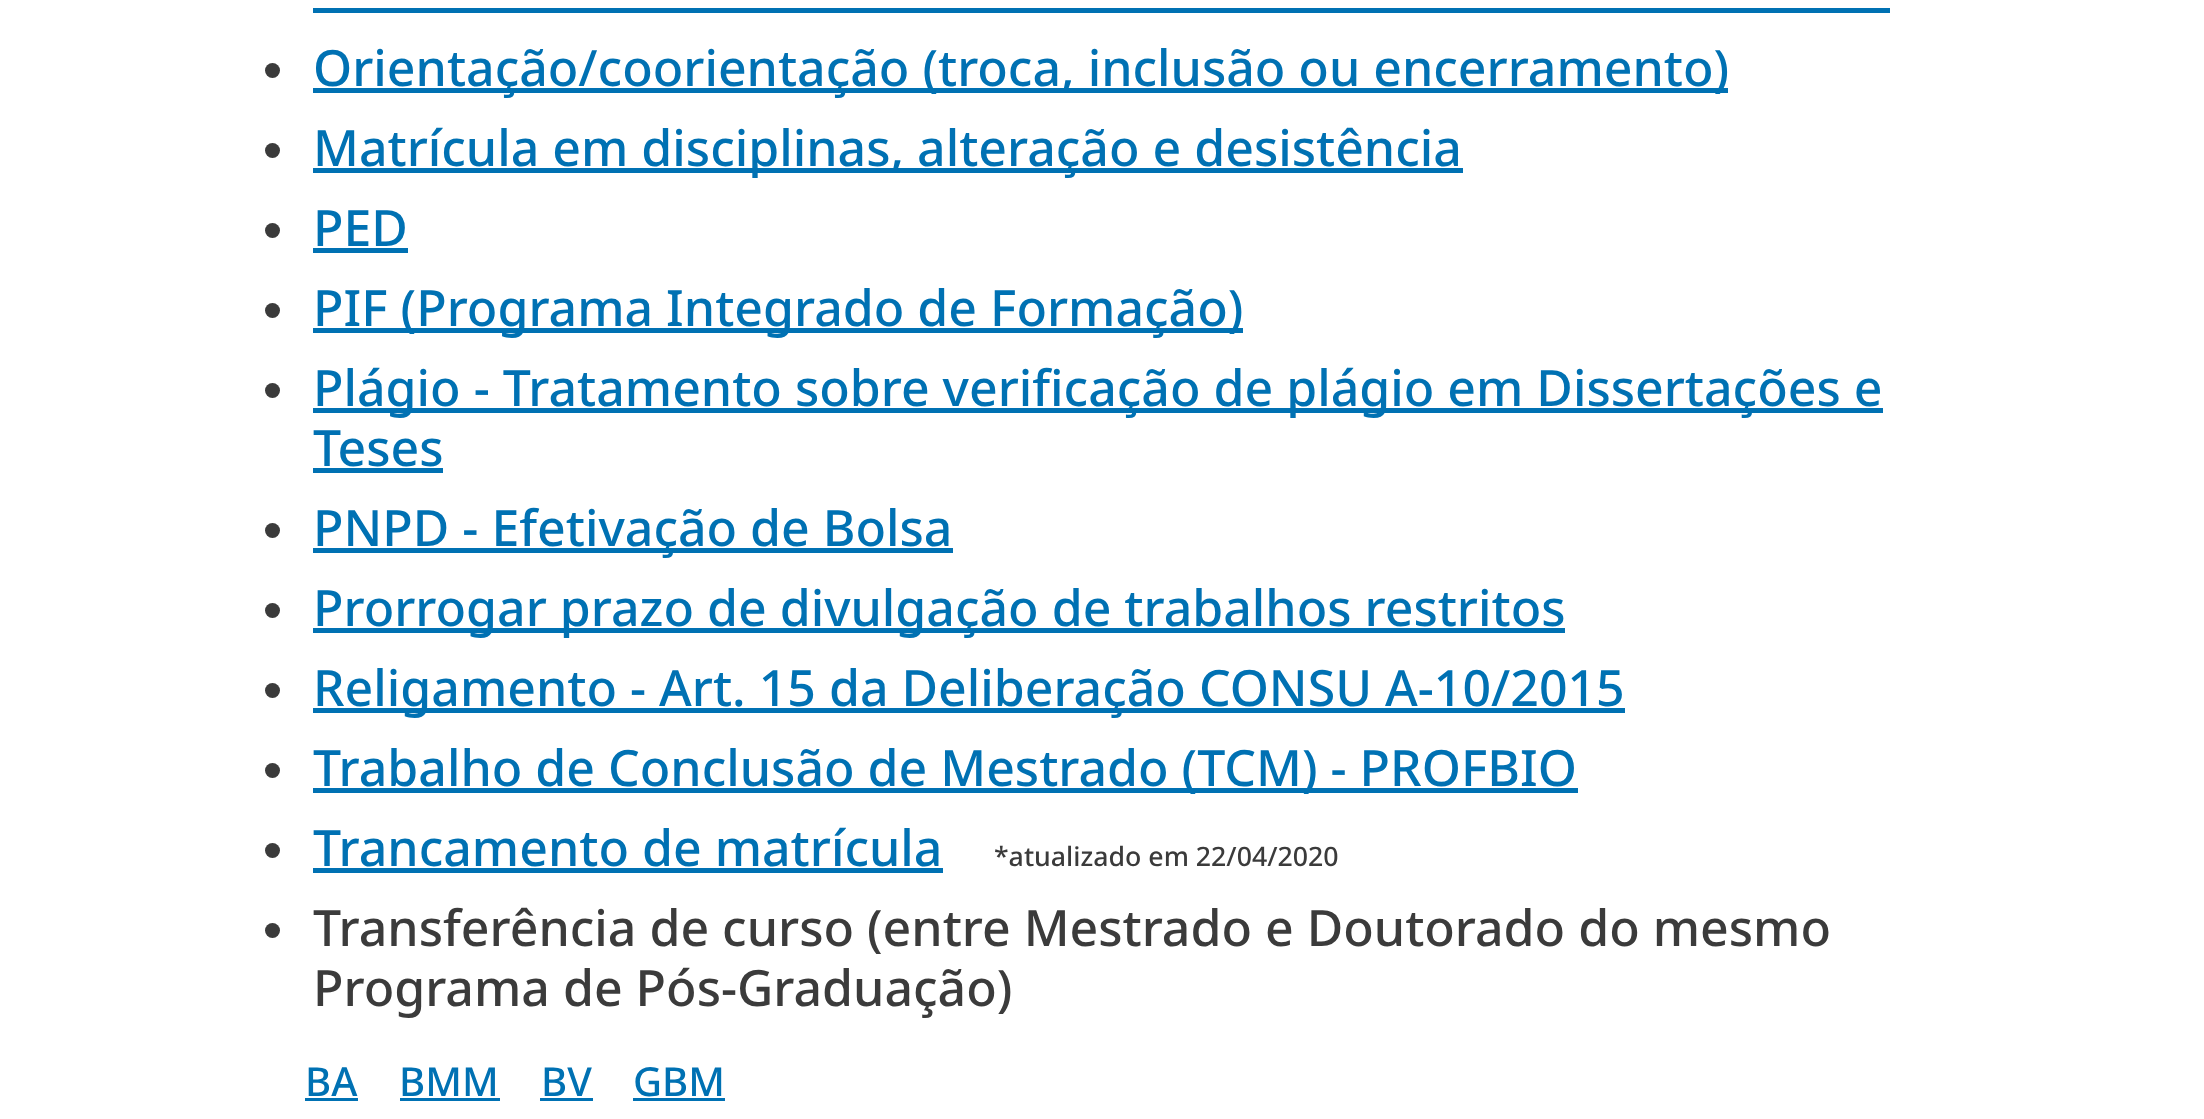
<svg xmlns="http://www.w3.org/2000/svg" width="2204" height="1119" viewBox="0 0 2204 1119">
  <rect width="100%" height="100%" fill="#ffffff"/>
  <rect x="313" y="8" width="1577" height="5" fill="#0071b3"/>
  <circle cx="272.5" cy="70.5" r="7.5" fill="#3b3b3b"/>
  <rect x="313" y="88" width="1415" height="5" fill="#0071b3"/>
  <text x="313" y="86" font-family="Noto Sans" font-size="50" font-weight="500" fill="#0071b3">Orientação/coorientação (troca, inclusão ou encerramento)</text>
  <circle cx="272.5" cy="150.5" r="7.5" fill="#3b3b3b"/>
  <rect x="313" y="168" width="1150" height="5" fill="#0071b3"/>
  <text x="313" y="166" font-family="Noto Sans" font-size="50" font-weight="500" fill="#0071b3">Matrícula em disciplinas, alteração e desistência</text>
  <circle cx="272.5" cy="230.5" r="7.5" fill="#3b3b3b"/>
  <text x="313" y="246" font-family="Noto Sans" font-size="50" font-weight="500" fill="#0071b3">PED</text>
  <rect x="313" y="248" width="95" height="5" fill="#0071b3"/>
  <circle cx="272.5" cy="310.5" r="7.5" fill="#3b3b3b"/>
  <rect x="313" y="328" width="930" height="5" fill="#0071b3"/>
  <text x="313" y="326" font-family="Noto Sans" font-size="50" font-weight="500" fill="#0071b3">PIF (Programa Integrado de Formação)</text>
  <circle cx="272.5" cy="390.5" r="7.5" fill="#3b3b3b"/>
  <rect x="313" y="408" width="1570" height="5" fill="#0071b3"/>
  <text x="313" y="406" font-family="Noto Sans" font-size="50" font-weight="500" fill="#0071b3">Plágio - Tratamento sobre verificação de plágio em Dissertações e</text>
  <text x="313" y="466" font-family="Noto Sans" font-size="50" font-weight="500" fill="#0071b3">Teses</text>
  <rect x="313" y="468" width="130" height="5" fill="#0071b3"/>
  <circle cx="272.5" cy="530.5" r="7.5" fill="#3b3b3b"/>
  <rect x="313" y="548" width="640" height="5" fill="#0071b3"/>
  <text x="313" y="546" font-family="Noto Sans" font-size="50" font-weight="500" fill="#0071b3">PNPD - Efetivação de Bolsa</text>
  <circle cx="272.5" cy="610.5" r="7.5" fill="#3b3b3b"/>
  <rect x="313" y="628" width="1252" height="5" fill="#0071b3"/>
  <text x="313" y="626" font-family="Noto Sans" font-size="50" font-weight="500" fill="#0071b3">Prorrogar prazo de divulgação de trabalhos restritos</text>
  <circle cx="272.5" cy="690.5" r="7.5" fill="#3b3b3b"/>
  <rect x="313" y="708" width="1312" height="5" fill="#0071b3"/>
  <text x="313" y="706" font-family="Noto Sans" font-size="50" font-weight="500" fill="#0071b3">Religamento - Art. 15 da Deliberação CONSU A-10/2015</text>
  <circle cx="272.5" cy="770.5" r="7.5" fill="#3b3b3b"/>
  <rect x="313" y="788" width="1265" height="5" fill="#0071b3"/>
  <text x="313" y="786" font-family="Noto Sans" font-size="50" font-weight="500" fill="#0071b3">Trabalho de Conclusão de Mestrado (TCM) - PROFBIO</text>
  <circle cx="272.5" cy="850.5" r="7.5" fill="#3b3b3b"/>
  <text x="313" y="866" font-family="Noto Sans" font-size="50" font-weight="500" fill="#0071b3">Trancamento de matrícula</text>
  <rect x="313" y="868" width="630" height="5" fill="#0071b3"/>
  <text x="994" y="866" font-family="Noto Sans" font-size="26.7" font-weight="500" fill="#3b3b3b">*atualizado em 22/04/2020</text>
  <circle cx="272.5" cy="930.5" r="7.5" fill="#3b3b3b"/>
  <text x="313" y="946" font-family="Noto Sans" font-size="50" font-weight="500" fill="#3b3b3b">Transferência de curso (entre Mestrado e Doutorado do mesmo</text>
  <text x="313" y="1006" font-family="Noto Sans" font-size="50" font-weight="500" fill="#3b3b3b">Programa de Pós-Graduação)</text>
  <text x="305" y="1096" font-family="Noto Sans" font-size="40" font-weight="500" fill="#0071b3">BA</text>
  <rect x="305" y="1098" width="53" height="3" fill="#0071b3"/>
  <text x="399" y="1096" font-family="Noto Sans" font-size="40" font-weight="500" fill="#0071b3">BMM</text>
  <rect x="400" y="1098" width="100" height="3" fill="#0071b3"/>
  <text x="541" y="1096" font-family="Noto Sans" font-size="40" font-weight="500" fill="#0071b3">BV</text>
  <rect x="540" y="1098" width="53" height="3" fill="#0071b3"/>
  <text x="633" y="1096" font-family="Noto Sans" font-size="40" font-weight="500" fill="#0071b3">GBM</text>
  <rect x="633" y="1098" width="92" height="3" fill="#0071b3"/>
</svg>
